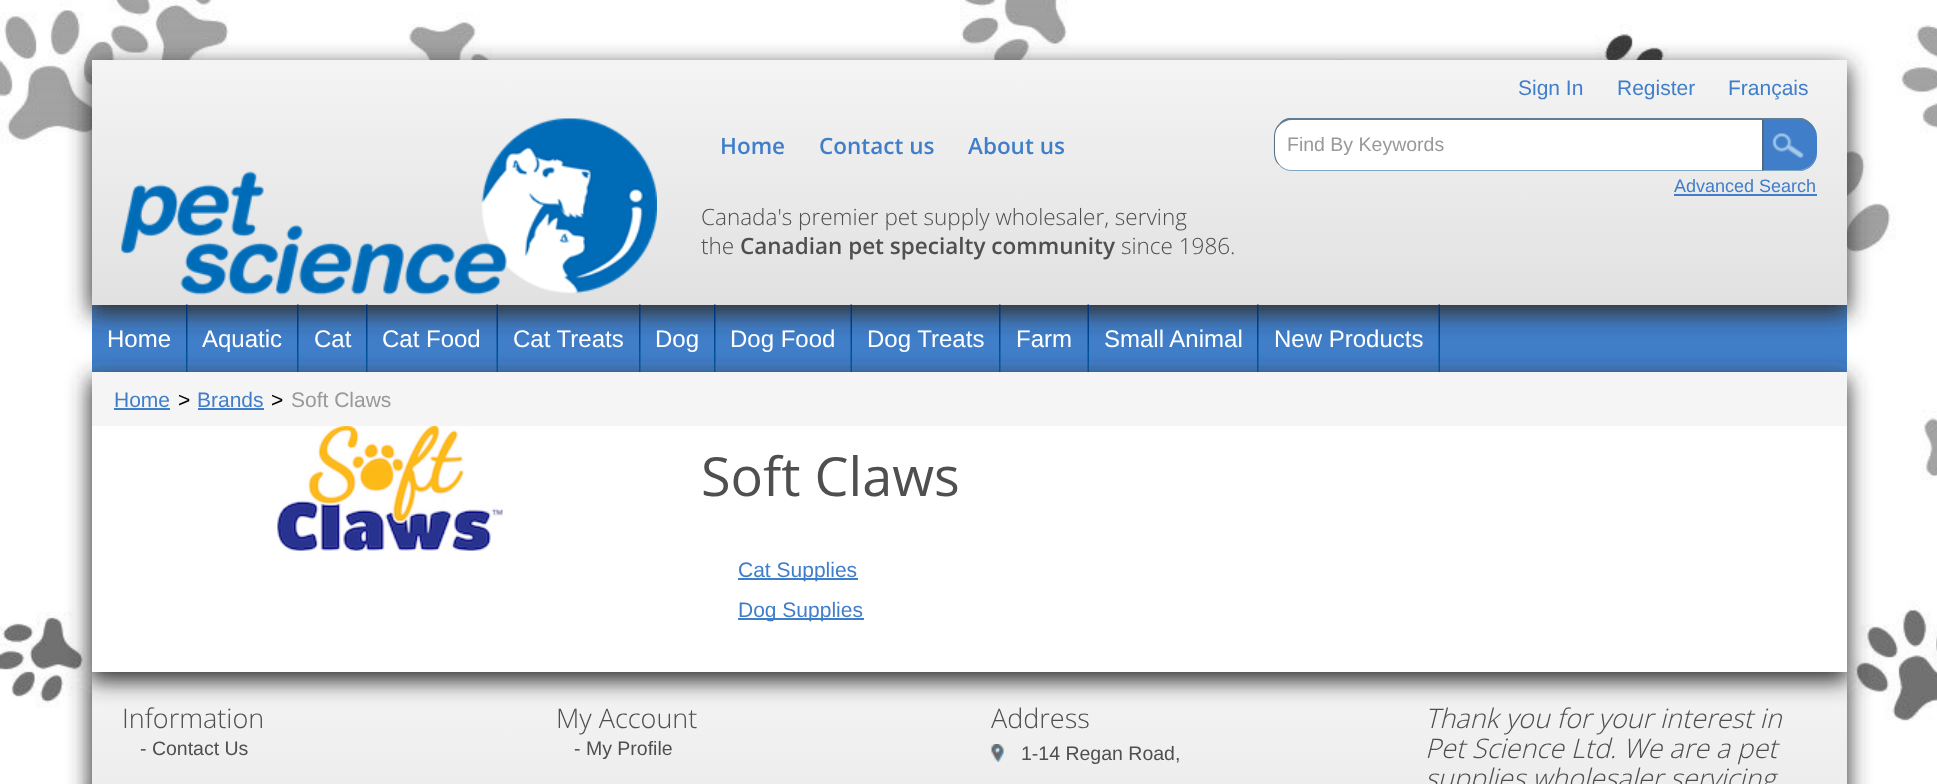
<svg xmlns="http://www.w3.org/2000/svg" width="1937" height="784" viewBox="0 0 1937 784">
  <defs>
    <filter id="blur1" x="-50%" y="-200%" width="200%" height="500%"><feGaussianBlur stdDeviation="11"/></filter>
    <linearGradient id="g1" gradientUnits="userSpaceOnUse" x1="969" y1="60" x2="969" y2="305"><stop offset="0" stop-color="#f4f4f4"/><stop offset="1" stop-color="#e1e1e1"/></linearGradient>
    <linearGradient id="g2" gradientUnits="userSpaceOnUse" x1="969" y1="672" x2="969" y2="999"><stop offset="0" stop-color="#f4f4f4"/><stop offset="1" stop-color="#e1e1e1"/></linearGradient>
  </defs>
  <rect width="100%" height="100%" fill="#ffffff"/>
  <image x="0" y="0" width="1937" height="784" href="img1.png"/>
  <rect x="92" y="305" width="1755" height="67" fill="#407ec9"/>
  <rect x="90" y="66" width="1758" height="248" fill="#333333" filter="url(#blur1)"/>
  <rect x="92" y="60" width="1755" height="245" fill="url(#g1)"/>
  <text x="1518" y="95" font-family="Liberation Sans" font-size="21" fill="#407ec9">Sign In</text>
  <text x="1617" y="95" font-family="Liberation Sans" font-size="21" fill="#407ec9">Register</text>
  <text x="1728" y="95" font-family="Liberation Sans" font-size="21" fill="#407ec9">Français</text>
  <image x="121" y="118" width="536" height="177" href="img2.png"/>
  <text x="720" y="154" font-family="Open Sans" font-size="22.5" font-weight="600" fill="#407ec9">Home</text>
  <text x="819" y="154" font-family="Open Sans" font-size="22.5" font-weight="600" fill="#407ec9">Contact us</text>
  <text x="968" y="154" font-family="Open Sans" font-size="22.5" font-weight="600" fill="#407ec9">About us</text>
  <path d="M1292 119H1763V171H1292C1282 171 1274 163 1274 153V137C1274 127 1282 119 1292 119Z" fill="#ffffff"/>
  <path d="M1292 120C1287 120 1283 122 1280 125L1279 124C1281 121 1284 119 1288 118H1762V120Z" fill="#5f7c93"/>
  <path d="M1292 171H1762V170H1292C1287 170 1283 168 1280 165H1279C1282 169 1287 171 1292 171Z" fill="#7fa6c5"/>
  <path d="M1279 165C1273 160 1274 152 1274 144C1274 137 1273 130 1279 124L1280 125C1274 130 1275 137 1275 144C1275 152 1274 159 1280 165Z" fill="#516a7d"/>
  <text x="1287" y="151" font-family="Liberation Sans" font-size="19.5" fill="#999999">Find By Keywords</text>
  <path d="M1763 119H1799C1809 119 1817 127 1817 137V153C1817 163 1809 171 1799 171H1763Z" fill="#407ec9"/>
  <path d="M1764 120H1798C1808 120 1816 127 1816 136C1816 128 1810 120 1802 118H1762Z" fill="#5f7c93"/>
  <path d="M1762 171H1798C1808 171 1816 163 1816 153C1816 162 1808 170 1798 170H1764Z" fill="#7fa6c5"/>
  <path d="M1764 120V170L1762 171V118Z" fill="#516a7d"/>
  <image x="1772" y="133" width="32" height="25" href="img3.png"/>
  <text x="1674" y="192" font-family="Liberation Sans" font-size="18" fill="#407ec9">Advanced Search</text>
  <rect x="1674" y="194" width="143" height="2" fill="#407ec9"/>
  <text x="701" y="225" font-family="Open Sans" font-size="22.5" font-weight="300" fill="#4f4f4f">Canada's premier pet supply wholesaler, serving</text>
  <text x="701" y="254" font-family="Open Sans" font-size="22.5" font-weight="300" fill="#4f4f4f">the</text>
  <text x="740" y="254" font-family="Open Sans" font-size="22.5" font-weight="600" fill="#4f4f4f">Canadian pet specialty community</text>
  <text x="1121" y="254" font-family="Open Sans" font-size="22.5" font-weight="300" fill="#4f4f4f">since 1986.</text>
  <image x="186" y="304" width="2" height="68" href="img4.png"/>
  <text x="107" y="347" font-family="Liberation Sans" font-size="24" fill="#ffffff">Home</text>
  <image x="297" y="304" width="2" height="68" href="img4.png"/>
  <text x="202" y="347" font-family="Liberation Sans" font-size="24" fill="#ffffff">Aquatic</text>
  <image x="366" y="304" width="2" height="68" href="img4.png"/>
  <text x="314" y="347" font-family="Liberation Sans" font-size="24" fill="#ffffff">Cat</text>
  <image x="496" y="304" width="2" height="68" href="img5.png"/>
  <text x="382" y="347" font-family="Liberation Sans" font-size="24" fill="#ffffff">Cat Food</text>
  <image x="639" y="304" width="2" height="68" href="img4.png"/>
  <text x="513" y="347" font-family="Liberation Sans" font-size="24" fill="#ffffff">Cat Treats</text>
  <image x="714" y="304" width="2" height="68" href="img4.png"/>
  <text x="655" y="347" font-family="Liberation Sans" font-size="24" fill="#ffffff">Dog</text>
  <image x="850" y="304" width="2" height="68" href="img5.png"/>
  <text x="730" y="347" font-family="Liberation Sans" font-size="24" fill="#ffffff">Dog Food</text>
  <image x="999" y="304" width="2" height="68" href="img4.png"/>
  <text x="867" y="347" font-family="Liberation Sans" font-size="24" fill="#ffffff">Dog Treats</text>
  <image x="1087" y="304" width="2" height="68" href="img5.png"/>
  <text x="1016" y="347" font-family="Liberation Sans" font-size="24" fill="#ffffff">Farm</text>
  <image x="1257" y="304" width="2" height="68" href="img4.png"/>
  <text x="1104" y="347" font-family="Liberation Sans" font-size="24" fill="#ffffff">Small Animal</text>
  <image x="1438" y="304" width="2" height="68" href="img5.png"/>
  <text x="1274" y="347" font-family="Liberation Sans" font-size="24" fill="#ffffff">New Products</text>
  <rect x="90" y="678" width="1758" height="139" fill="#333333" filter="url(#blur1)"/>
  <rect x="92" y="672" width="1755" height="112" fill="url(#g2)"/>
  <rect x="90" y="378" width="1758" height="303" fill="#333333" filter="url(#blur1)"/>
  <rect x="92" y="426" width="1755" height="246" fill="#ffffff"/>
  <rect x="92" y="372" width="1755" height="54" fill="#f5f5f5"/>
  <text x="114" y="407" font-family="Liberation Sans" font-size="21" fill="#407ec9">Home</text>
  <rect x="114" y="408" width="56" height="2" fill="#407ec9"/>
  <text x="178" y="407" font-family="Liberation Sans" font-size="21" fill="#000000">&gt;</text>
  <text x="197" y="407" font-family="Liberation Sans" font-size="21" fill="#407ec9">Brands</text>
  <rect x="198" y="408" width="66" height="2" fill="#407ec9"/>
  <text x="271" y="407" font-family="Liberation Sans" font-size="21" fill="#000000">&gt;</text>
  <text x="291" y="407" font-family="Liberation Sans" font-size="21" fill="#999999">Soft Claws</text>
  <image x="277" y="426" width="226" height="125" href="img6.png"/>
  <text x="701" y="496" font-family="Open Sans" font-size="54" fill="#4f4f4f">Soft Claws</text>
  <rect x="738" y="578" width="120" height="2" fill="#407ec9"/>
  <text x="738" y="577" font-family="Liberation Sans" font-size="21" fill="#407ec9">Cat Supplies</text>
  <rect x="738" y="618" width="126" height="2" fill="#407ec9"/>
  <text x="738" y="617" font-family="Liberation Sans" font-size="21" fill="#407ec9">Dog Supplies</text>
  <text x="122" y="728" font-family="Open Sans" font-size="27" font-weight="300" fill="#4f4f4f">Information</text>
  <text x="140" y="755" font-family="Liberation Sans" font-size="19.5" fill="#4f4f4f">- Contact Us</text>
  <text x="556" y="728" font-family="Open Sans" font-size="27" font-weight="300" fill="#4f4f4f">My Account</text>
  <text x="574" y="755" font-family="Liberation Sans" font-size="19.5" fill="#4f4f4f">- My Profile</text>
  <text x="991" y="728" font-family="Open Sans" font-size="27" font-weight="300" fill="#4f4f4f">Address</text>
  <image x="991" y="744" width="13" height="18" href="img7.png"/>
  <text x="1021" y="760" font-family="Liberation Sans" font-size="19.5" fill="#4f4f4f">1-14 Regan Road,</text>
  <text x="1425" y="728" font-family="Open Sans" font-size="27" font-weight="300" font-style="italic" fill="#4f4f4f">Thank you for your interest in</text>
  <text x="1425" y="758" font-family="Open Sans" font-size="27" font-weight="300" font-style="italic" fill="#4f4f4f">Pet Science Ltd. We are a pet</text>
  <text x="1425" y="788" font-family="Open Sans" font-size="27" font-weight="300" font-style="italic" fill="#4f4f4f">supplies wholesaler servicing</text>
</svg>
